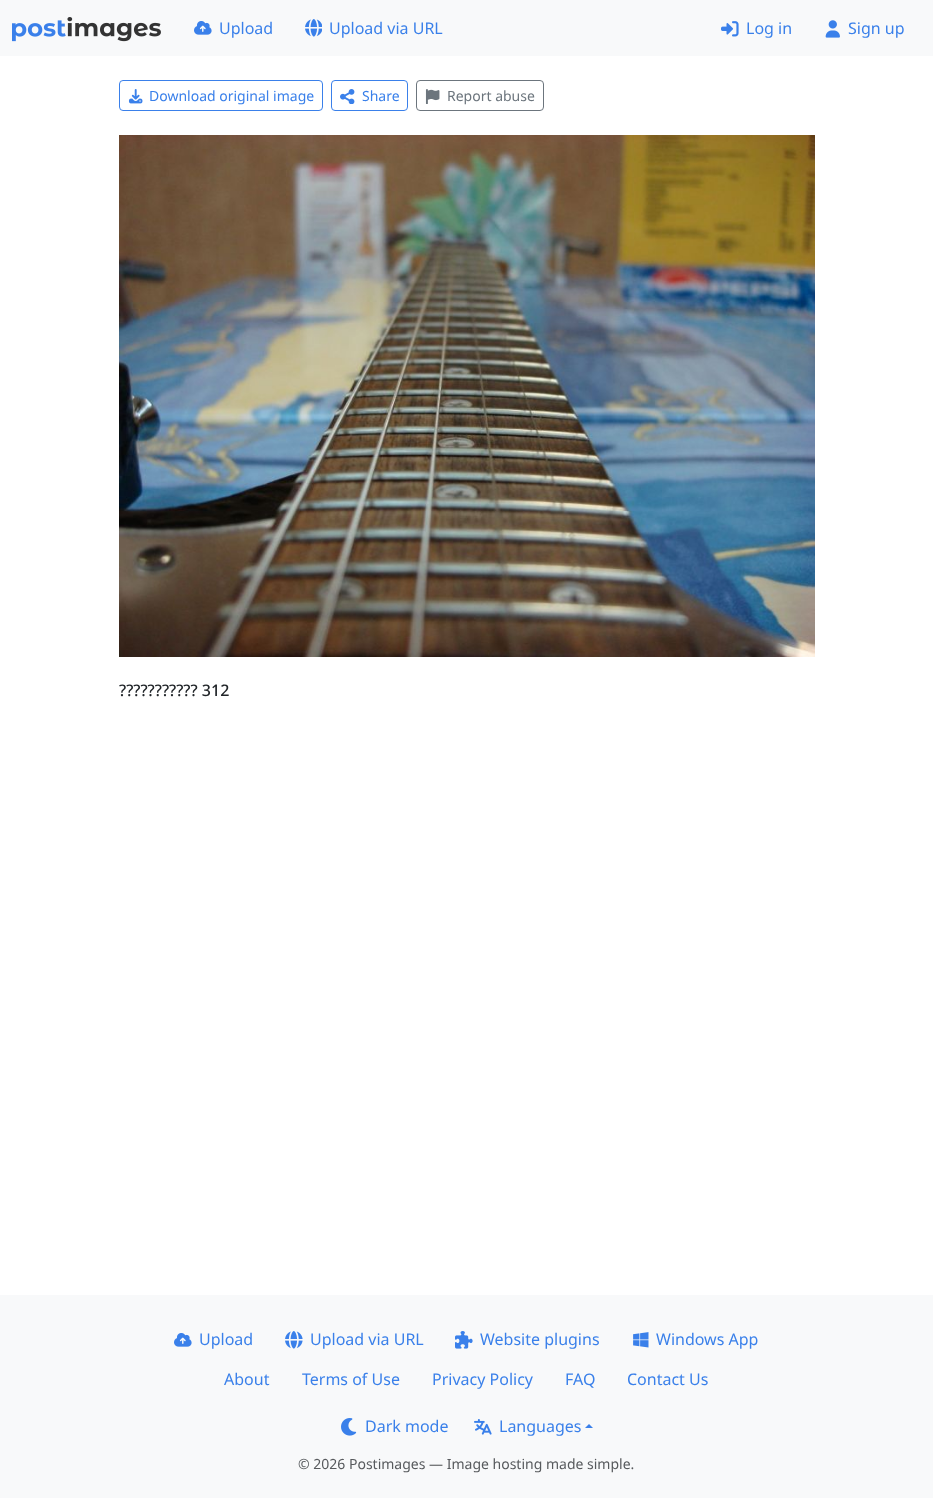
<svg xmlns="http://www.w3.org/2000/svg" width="933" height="1498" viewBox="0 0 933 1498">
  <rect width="100%" height="100%" fill="#ffffff"/>
  <rect x="0" y="0" width="933" height="56" fill="#f8f9fa"/>
  <image x="12" y="17" width="149" height="25" href="img1.png"/>
  <image x="194" y="21" width="18" height="14" href="img2.png"/>
  <text x="219" y="34" font-family="Noto Sans" font-size="16" fill="#3a80ea">Upload</text>
  <image x="305" y="19" width="17" height="18" href="img3.png"/>
  <text x="329" y="34" font-family="Noto Sans" font-size="16" fill="#3a80ea">Upload via URL</text>
  <image x="721" y="21" width="18" height="16" href="img4.png"/>
  <text x="746" y="34" font-family="Noto Sans" font-size="16" fill="#3a80ea">Log in</text>
  <image x="825" y="20" width="15" height="18" href="img5.png"/>
  <text x="848" y="34" font-family="Noto Sans" font-size="16" fill="#3a80ea">Sign up</text>
  <rect x="119.5" y="80.5" width="203" height="30" rx="3.5" fill="none" stroke="#3a80ea"/>
  <image x="128" y="89" width="15" height="15" href="img6.png"/>
  <text x="149" y="101" font-family="Noto Sans" font-size="14" fill="#3a80ea">Download original image</text>
  <rect x="331.5" y="80.5" width="76" height="30" rx="3.5" fill="none" stroke="#3a80ea"/>
  <image x="340" y="89" width="15" height="15" href="img7.png"/>
  <text x="362" y="101" font-family="Noto Sans" font-size="14" fill="#3a80ea">Share</text>
  <rect x="416.5" y="80.5" width="127" height="30" rx="3.5" fill="none" stroke="#6c757d"/>
  <image x="425" y="89" width="15" height="15" href="img8.png"/>
  <text x="447" y="101" font-family="Noto Sans" font-size="14" fill="#6c757d">Report abuse</text>
  <image x="119" y="135" width="696" height="522" href="img9.png"/>
  <text x="119" y="696" font-family="Noto Sans" font-size="16" font-weight="500" fill="#212529">??????????? 312</text>
  <rect x="0" y="1295" width="933" height="203" fill="#f8f9fa"/>
  <image x="174" y="1333" width="18" height="14" href="img2.png"/>
  <text x="199" y="1345" font-family="Noto Sans" font-size="16" fill="#3a80ea">Upload</text>
  <image x="285" y="1331" width="18" height="18" href="img10.png"/>
  <text x="310" y="1345" font-family="Noto Sans" font-size="16" fill="#3a80ea">Upload via URL</text>
  <image x="455" y="1331" width="18" height="18" href="img11.png"/>
  <text x="480" y="1345" font-family="Noto Sans" font-size="16" fill="#3a80ea">Website plugins</text>
  <image x="633" y="1332" width="16" height="16" href="img12.png"/>
  <text x="656" y="1345" font-family="Noto Sans" font-size="16" fill="#3a80ea">Windows App</text>
  <text x="224" y="1385" font-family="Noto Sans" font-size="16" fill="#3a80ea">About</text>
  <text x="302" y="1385" font-family="Noto Sans" font-size="16" fill="#3a80ea">Terms of Use</text>
  <text x="432" y="1385" font-family="Noto Sans" font-size="16" fill="#3a80ea">Privacy Policy</text>
  <text x="565" y="1385" font-family="Noto Sans" font-size="16" fill="#3a80ea">FAQ</text>
  <text x="627" y="1385" font-family="Noto Sans" font-size="16" fill="#3a80ea">Contact Us</text>
  <image x="341" y="1418" width="16" height="18" href="img13.png"/>
  <text x="365" y="1432" font-family="Noto Sans" font-size="16" fill="#3a80ea">Dark mode</text>
  <image x="474" y="1419" width="18" height="16" href="img14.png"/>
  <text x="499" y="1432" font-family="Noto Sans" font-size="16" fill="#3a80ea">Languages</text>
  <path d="M593 1428H585L589 1424Z" fill="#3a80ea"/>
  <text x="298" y="1469" font-family="Noto Sans" font-size="14" fill="#575a5d">© 2026 Postimages — Image hosting made simple.</text>
</svg>
